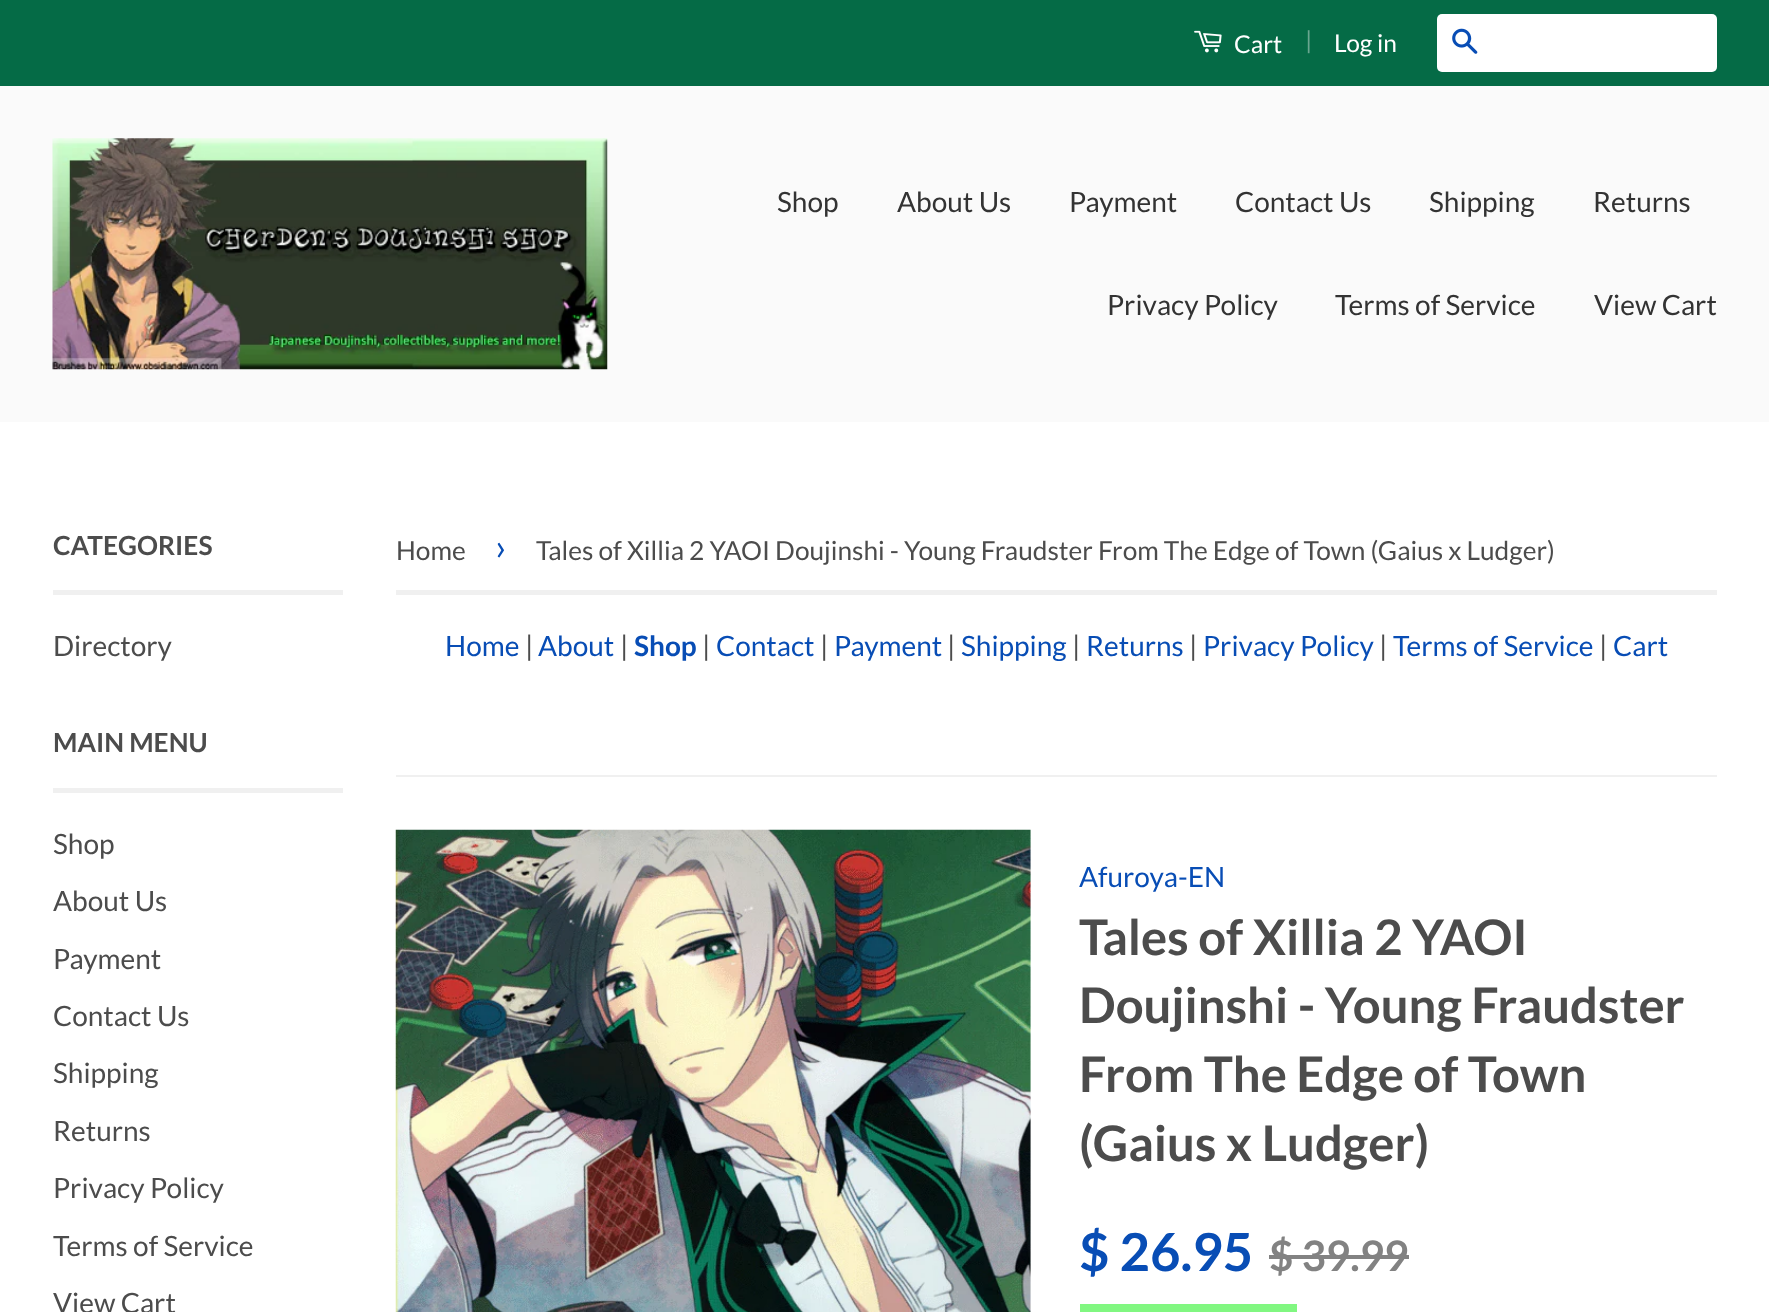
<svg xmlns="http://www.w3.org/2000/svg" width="1769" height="1312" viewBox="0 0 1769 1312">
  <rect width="100%" height="100%" fill="#ffffff"/>
  <rect x="0" y="0" width="1769" height="86" fill="#056b46"/>
  <image x="1194" y="30" width="28" height="23" href="img1.png"/>
  <text x="1234" y="53" font-family="Lato" font-size="24.5" fill="#ffffff">Cart</text>
  <text x="1305" y="49" font-family="Lato" font-size="24.5" fill="#69a690">|</text>
  <text x="1334" y="52" font-family="Lato" font-size="24.5" fill="#ffffff">Log in</text>
  <rect x="1437" y="14" width="280" height="58" rx="5" fill="#ffffff"/>
  <image x="1452" y="28" width="26" height="26" href="img2.png"/>
  <rect x="0" y="86" width="1769" height="336" fill="#fafafa"/>
  <image x="52" y="138" width="556" height="232" href="img3.png"/>
  <text x="777" y="212" font-family="Lato" font-size="28" fill="#333333">Shop</text>
  <text x="897" y="212" font-family="Lato" font-size="28" fill="#333333">About Us</text>
  <text x="1069" y="212" font-family="Lato" font-size="28" fill="#333333">Payment</text>
  <text x="1235" y="212" font-family="Lato" font-size="28" fill="#333333">Contact Us</text>
  <text x="1429" y="212" font-family="Lato" font-size="28" fill="#333333">Shipping</text>
  <text x="1593" y="212" font-family="Lato" font-size="28" fill="#333333">Returns</text>
  <text x="1107" y="315" font-family="Lato" font-size="28" fill="#333333">Privacy Policy</text>
  <text x="1335" y="315" font-family="Lato" font-size="28" fill="#333333">Terms of Service</text>
  <text x="1594" y="315" font-family="Lato" font-size="28" fill="#333333">View Cart</text>
  <rect x="53" y="590" width="290" height="5" fill="#f0f0f0"/>
  <text x="53" y="555" font-family="Lato" font-size="26.25" font-weight="bold" fill="#4c4c4c">CATEGORIES</text>
  <text x="53" y="656" font-family="Lato" font-size="28" fill="#4c4c4c">Directory</text>
  <rect x="53" y="788" width="290" height="5" fill="#f0f0f0"/>
  <text x="53" y="752" font-family="Lato" font-size="26.25" font-weight="bold" fill="#4c4c4c">MAIN MENU</text>
  <text x="53" y="854" font-family="Lato" font-size="28" fill="#4c4c4c">Shop</text>
  <text x="53" y="911" font-family="Lato" font-size="28" fill="#4c4c4c">About Us</text>
  <text x="53" y="969" font-family="Lato" font-size="28" fill="#4c4c4c">Payment</text>
  <text x="53" y="1026" font-family="Lato" font-size="28" fill="#4c4c4c">Contact Us</text>
  <text x="53" y="1083" font-family="Lato" font-size="28" fill="#4c4c4c">Shipping</text>
  <text x="53" y="1141" font-family="Lato" font-size="28" fill="#4c4c4c">Returns</text>
  <text x="53" y="1198" font-family="Lato" font-size="28" fill="#4c4c4c">Privacy Policy</text>
  <text x="53" y="1256" font-family="Lato" font-size="28" fill="#4c4c4c">Terms of Service</text>
  <text x="53" y="1313" font-family="Lato" font-size="28" fill="#4c4c4c">View Cart</text>
  <rect x="396" y="590" width="1321" height="5" fill="#f0f0f0"/>
  <text x="396" y="560" font-family="Lato" font-size="26.25" fill="#4c4c4c">Home</text>
  <text x="495" y="560" font-family="Lato" font-size="37" fill="#084db5">›</text>
  <text x="536" y="560" font-family="Lato" font-size="26.25" fill="#4c4c4c">Tales of Xillia 2 YAOI Doujinshi - Young Fraudster From The Edge of Town (Gaius x Ludger)</text>
  <text x="445" y="656" font-family="Lato" font-size="28" fill="#084db5">Home</text>
  <text x="525" y="656" font-family="Lato" font-size="28" fill="#4c4c4c">|</text>
  <text x="538" y="656" font-family="Lato" font-size="28" fill="#084db5">About</text>
  <text x="620" y="656" font-family="Lato" font-size="28" fill="#4c4c4c">|</text>
  <text x="634" y="656" font-family="Lato" font-size="28" font-weight="bold" fill="#084db5">Shop</text>
  <text x="702" y="656" font-family="Lato" font-size="28" fill="#4c4c4c">|</text>
  <text x="716" y="656" font-family="Lato" font-size="28" fill="#084db5">Contact</text>
  <text x="820" y="656" font-family="Lato" font-size="28" fill="#4c4c4c">|</text>
  <text x="834" y="656" font-family="Lato" font-size="28" fill="#084db5">Payment</text>
  <text x="947" y="656" font-family="Lato" font-size="28" fill="#4c4c4c">|</text>
  <text x="961" y="656" font-family="Lato" font-size="28" fill="#084db5">Shipping</text>
  <text x="1072" y="656" font-family="Lato" font-size="28" fill="#4c4c4c">|</text>
  <text x="1086" y="656" font-family="Lato" font-size="28" fill="#084db5">Returns</text>
  <text x="1189" y="656" font-family="Lato" font-size="28" fill="#4c4c4c">|</text>
  <text x="1203" y="656" font-family="Lato" font-size="28" fill="#084db5">Privacy Policy</text>
  <text x="1379" y="656" font-family="Lato" font-size="28" fill="#4c4c4c">|</text>
  <text x="1393" y="656" font-family="Lato" font-size="28" fill="#084db5">Terms of Service</text>
  <text x="1599" y="656" font-family="Lato" font-size="28" fill="#4c4c4c">|</text>
  <text x="1613" y="656" font-family="Lato" font-size="28" fill="#084db5">Cart</text>
  <rect x="396" y="775" width="1321" height="2" fill="#f0f0f0"/>
  <image x="395" y="829" width="636" height="483" href="img4.png"/>
  <text x="1079" y="887" font-family="Lato" font-size="28" fill="#084db5">Afuroya-EN</text>
  <text x="1079" y="955" font-family="Lato" font-size="49" font-weight="bold" fill="#4c4c4c">Tales of Xillia 2 YAOI</text>
  <text x="1079" y="1023" font-family="Lato" font-size="49" font-weight="bold" fill="#4c4c4c">Doujinshi - Young Fraudster</text>
  <text x="1079" y="1092" font-family="Lato" font-size="49" font-weight="bold" fill="#4c4c4c">From The Edge of Town</text>
  <text x="1079" y="1161" font-family="Lato" font-size="49" font-weight="bold" fill="#4c4c4c">(Gaius x Ludger)</text>
  <text x="1079" y="1271" font-family="Lato" font-size="52.5" font-weight="bold" fill="#084db5">$ 26.95</text>
  <text x="1269" y="1271" font-family="Lato" font-size="42" font-weight="bold" fill="#828282">$ 39.99</text>
  <rect x="1269" y="1255" width="140" height="4" fill="#828282"/>
  <rect x="1080" y="1304" width="217" height="8" fill="#81f781"/>
</svg>
